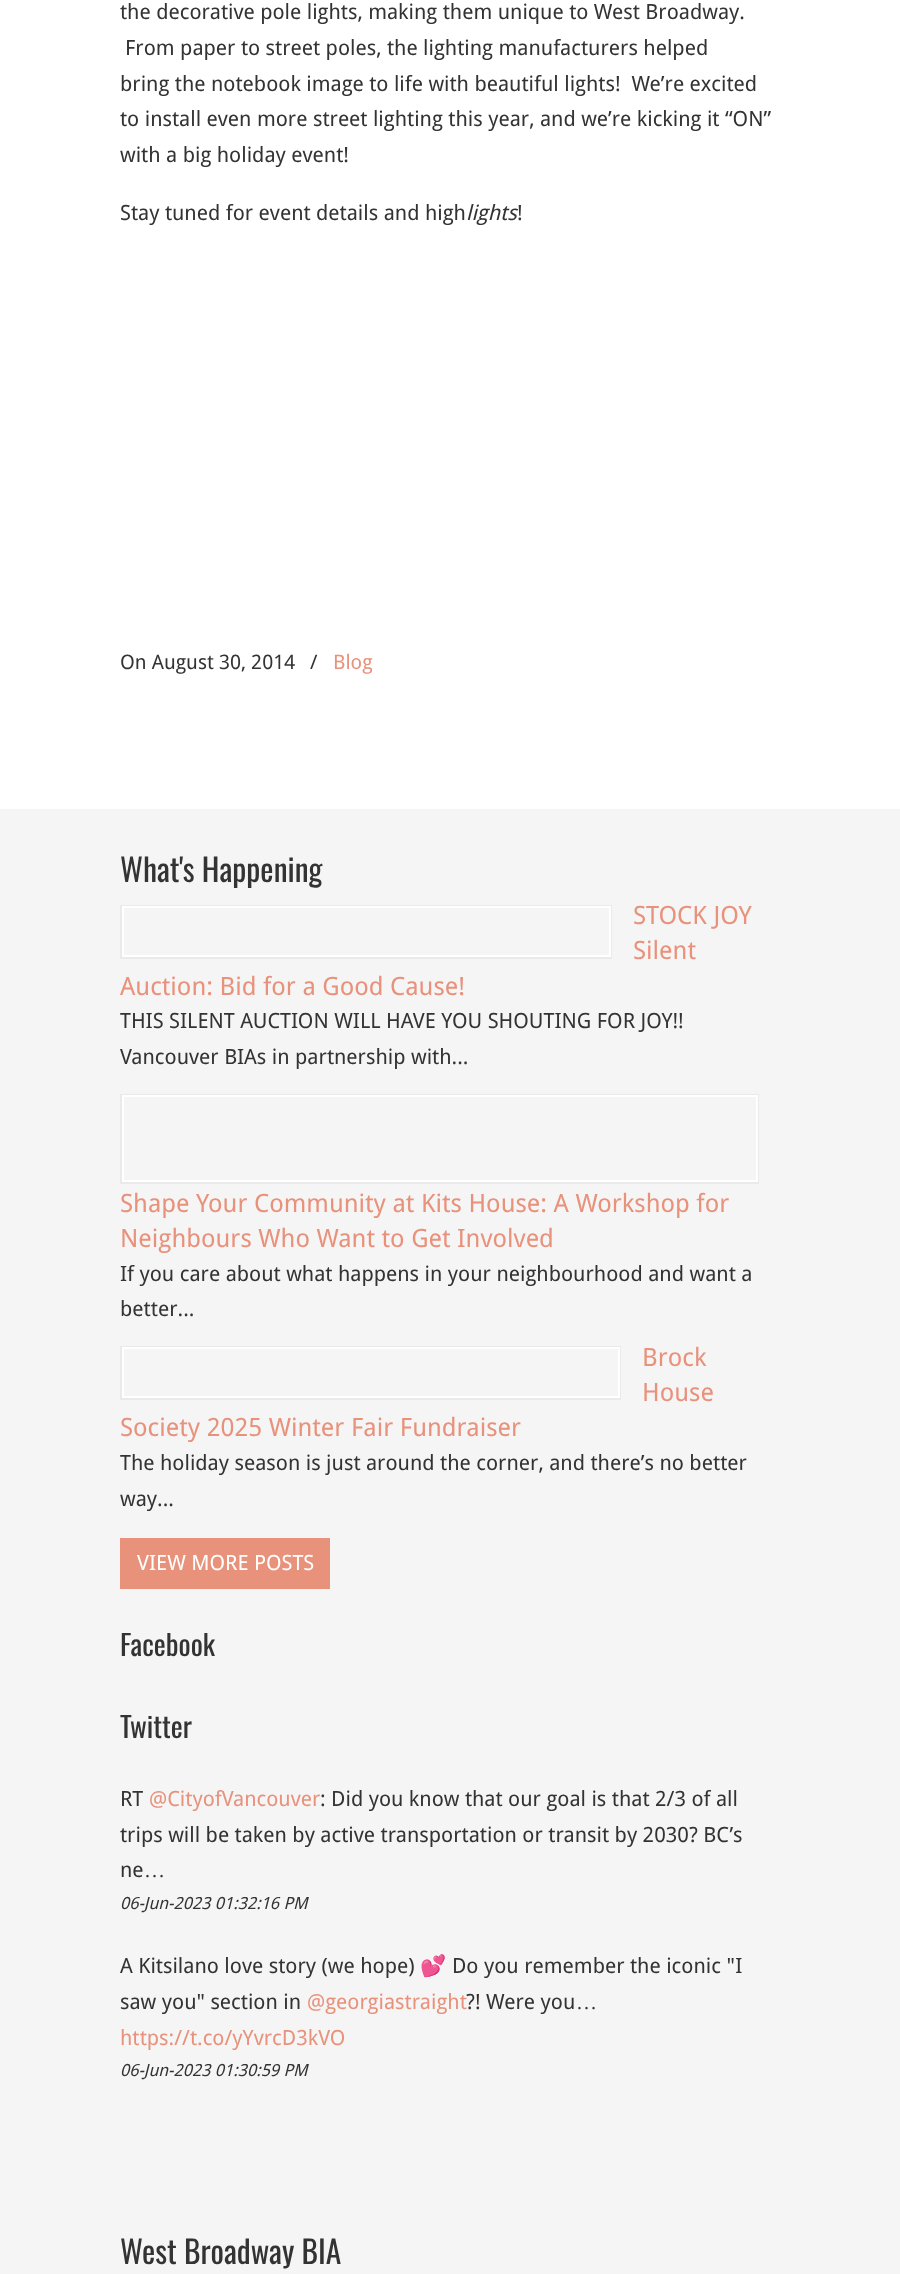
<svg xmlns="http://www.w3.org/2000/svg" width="900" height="2274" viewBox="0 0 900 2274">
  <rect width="100%" height="100%" fill="#ffffff"/>
  <text x="120" y="19" font-family="Droid Sans" font-size="21" fill="#333333">the decorative pole lights, making them unique to West Broadway.</text>
  <text x="125" y="55" font-family="Droid Sans" font-size="21" fill="#333333">From paper to street poles, the lighting manufacturers helped</text>
  <text x="120" y="91" font-family="Droid Sans" font-size="21" fill="#333333" xml:space="preserve">bring the notebook image to life with beautiful lights!  We’re excited</text>
  <text x="120" y="126" font-family="Droid Sans" font-size="21" fill="#333333">to install even more street lighting this year, and we’re kicking it “ON”</text>
  <text x="120" y="162" font-family="Droid Sans" font-size="21" fill="#333333">with a big holiday event!</text>
  <text x="120" y="220" font-family="Droid Sans" font-size="21" fill="#333333">Stay tuned for event details and high</text>
  <text x="466" y="220" font-family="Droid Sans" font-size="21" font-style="italic" fill="#333333">lights</text>
  <text x="517" y="220" font-family="Droid Sans" font-size="21" fill="#333333">!</text>
  <text x="120" y="669" font-family="Droid Sans" font-size="20" fill="#333333">On August 30, 2014</text>
  <text x="310" y="669" font-family="Droid Sans" font-size="20" fill="#333333">/</text>
  <text x="333" y="669" font-family="Droid Sans" font-size="20" fill="#e8927c">Blog</text>
  <rect x="0" y="809" width="900" height="1465" fill="#f5f5f5"/>
  <text x="120" y="882" font-family="Oswald" font-size="31.5" fill="#333333">What's Happening</text>
  <rect x="121" y="906" width="490" height="52" fill="none" stroke="#eaeaea" stroke-width="2"/>
  <rect x="123" y="907" width="487" height="49" fill="none" stroke="#ffffff" stroke-width="2"/>
  <text x="633" y="924" font-family="Droid Sans" font-size="25.2" fill="#e8927c">STOCK JOY</text>
  <text x="633" y="959" font-family="Droid Sans" font-size="25.2" fill="#e8927c">Silent</text>
  <text x="120" y="995" font-family="Droid Sans" font-size="25.2" fill="#e8927c">Auction: Bid for a Good Cause!</text>
  <text x="120" y="1028" font-family="Droid Sans" font-size="21" fill="#333333">THIS SILENT AUCTION WILL HAVE YOU SHOUTING FOR JOY!!</text>
  <text x="120" y="1064" font-family="Droid Sans" font-size="21" fill="#333333">Vancouver BIAs in partnership with...</text>
  <rect x="121" y="1095" width="637" height="88" fill="none" stroke="#eaeaea" stroke-width="2"/>
  <rect x="123" y="1096" width="634" height="85" fill="none" stroke="#ffffff" stroke-width="2"/>
  <text x="120" y="1212" font-family="Droid Sans" font-size="25.2" fill="#e8927c">Shape Your Community at Kits House: A Workshop for</text>
  <text x="120" y="1247" font-family="Droid Sans" font-size="25.2" fill="#e8927c">Neighbours Who Want to Get Involved</text>
  <text x="120" y="1281" font-family="Droid Sans" font-size="21" fill="#333333">If you care about what happens in your neighbourhood and want a</text>
  <text x="120" y="1316" font-family="Droid Sans" font-size="21" fill="#333333">better...</text>
  <rect x="121" y="1347" width="499" height="52" fill="none" stroke="#eaeaea" stroke-width="2"/>
  <rect x="123" y="1348" width="496" height="49" fill="none" stroke="#ffffff" stroke-width="2"/>
  <text x="642" y="1366" font-family="Droid Sans" font-size="25.2" fill="#e8927c">Brock</text>
  <text x="642" y="1401" font-family="Droid Sans" font-size="25.2" fill="#e8927c">House</text>
  <text x="120" y="1436" font-family="Droid Sans" font-size="25.2" fill="#e8927c">Society 2025 Winter Fair Fundraiser</text>
  <text x="120" y="1470" font-family="Droid Sans" font-size="21" fill="#333333">The holiday season is just around the corner, and there’s no better</text>
  <text x="120" y="1506" font-family="Droid Sans" font-size="21" fill="#333333">way...</text>
  <rect x="120" y="1538" width="210" height="51" fill="#e8927c"/>
  <text x="137" y="1570" font-family="Droid Sans" font-size="21" fill="#ffffff">VIEW MORE POSTS</text>
  <text x="120" y="1656" font-family="Oswald" font-size="28.5" fill="#333333">Facebook</text>
  <text x="120" y="1738" font-family="Oswald" font-size="28.5" fill="#333333">Twitter</text>
  <text x="120" y="1806" font-family="Droid Sans" font-size="21" fill="#333333">RT</text>
  <text x="149" y="1806" font-family="Droid Sans" font-size="21" fill="#e8927c">@CityofVancouver</text>
  <text x="320" y="1806" font-family="Droid Sans" font-size="21" fill="#333333">: Did you know that our goal is that 2/3 of all</text>
  <text x="120" y="1842" font-family="Droid Sans" font-size="21" fill="#333333">trips will be taken by active transportation or transit by 2030? BC’s</text>
  <text x="120" y="1877" font-family="Droid Sans" font-size="21" fill="#333333">ne</text>
  <text x="144" y="1877" font-family="Liberation Serif" font-size="21" fill="#333333">…</text>
  <text x="120" y="1909" font-family="Droid Sans" font-size="16.75" font-style="italic" fill="#333333">06-Jun-2023 01:32:16 PM</text>
  <text x="120" y="1973" font-family="Droid Sans" font-size="21" fill="#333333">A Kitsilano love story (we hope)</text>
  <text x="420" y="1973" font-family="Noto Color Emoji" font-size="21" fill="#333333">💕</text>
  <text x="452" y="1973" font-family="Droid Sans" font-size="21" fill="#333333">Do you remember the iconic "I</text>
  <text x="120" y="2009" font-family="Droid Sans" font-size="21" fill="#333333">saw you" section in</text>
  <text x="307" y="2009" font-family="Droid Sans" font-size="21" fill="#e8927c">@georgiastraight</text>
  <text x="466" y="2009" font-family="Droid Sans" font-size="21" fill="#333333">?! Were you</text>
  <text x="576" y="2009" font-family="Liberation Serif" font-size="21" fill="#333333">…</text>
  <text x="120" y="2045" font-family="Droid Sans" font-size="21" fill="#e8927c">https://t.co/yYvrcD3kVO</text>
  <text x="120" y="2076" font-family="Droid Sans" font-size="16.75" font-style="italic" fill="#333333">06-Jun-2023 01:30:59 PM</text>
  <text x="120" y="2264" font-family="Oswald" font-size="31.5" fill="#333333">West Broadway BIA</text>
</svg>
